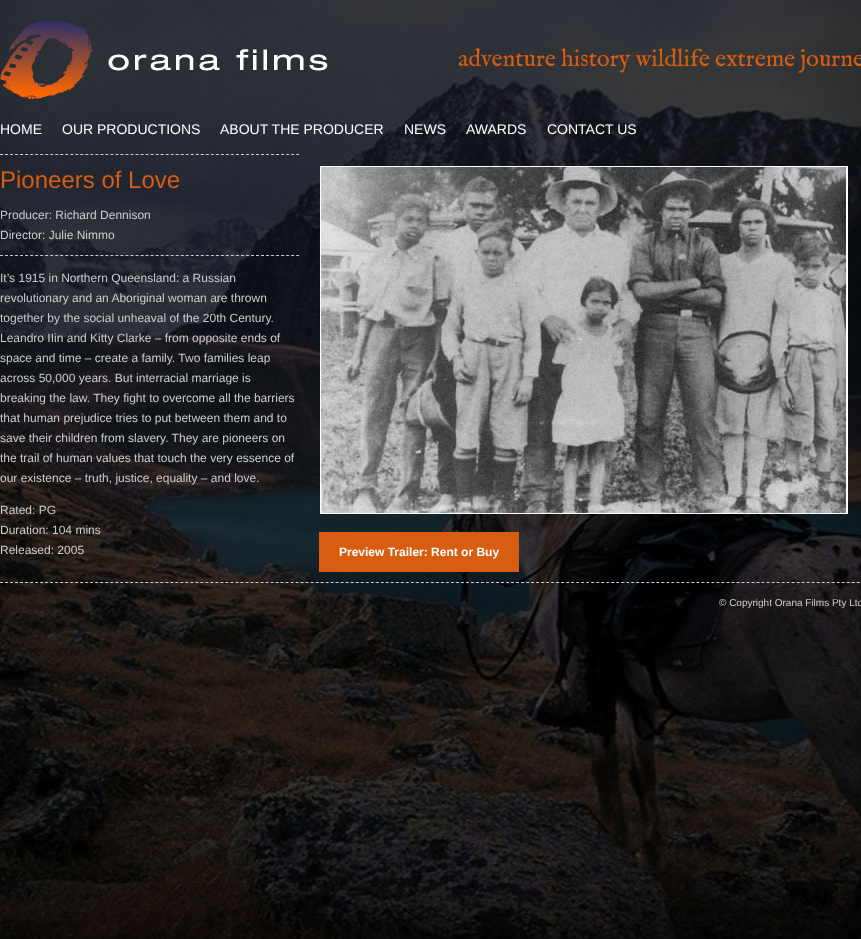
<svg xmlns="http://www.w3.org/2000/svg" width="861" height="939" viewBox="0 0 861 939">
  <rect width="100%" height="100%" fill="#ffffff"/>
  <image x="0" y="0" width="861" height="939" href="img1.png"/>
  <image x="0" y="20" width="328" height="79" href="img2.png"/>
  <text x="458" y="66" font-family="IM FELL English" font-size="24" fill="#d75d10">adventure history wildlife extreme journe</text>
  <text x="0" y="134" font-family="Liberation Sans" font-size="14" fill="#ffffff">HOME</text>
  <text x="62" y="134" font-family="Liberation Sans" font-size="14" fill="#ffffff">OUR PRODUCTIONS</text>
  <text x="220" y="134" font-family="Liberation Sans" font-size="14" fill="#ffffff">ABOUT THE PRODUCER</text>
  <text x="404" y="134" font-family="Liberation Sans" font-size="14" fill="#ffffff">NEWS</text>
  <text x="466" y="134" font-family="Liberation Sans" font-size="14" fill="#ffffff">AWARDS</text>
  <text x="547" y="134" font-family="Liberation Sans" font-size="14" fill="#ffffff">CONTACT US</text>
  <path d="M0 154.5H299" fill="none" stroke="#cccccc" stroke-dasharray="3 2.02"/>
  <text x="0" y="188" font-family="Liberation Sans" font-size="24" fill="#d75d10">Pioneers of Love</text>
  <path d="M0 255.5H299" fill="none" stroke="#cccccc" stroke-dasharray="3 2.02"/>
  <text x="0" y="219" font-family="Liberation Sans" font-size="12" fill="#cccccc">Producer: Richard Dennison</text>
  <text x="0" y="239" font-family="Liberation Sans" font-size="12" fill="#cccccc">Director: Julie Nimmo</text>
  <text x="0" y="282" font-family="Liberation Sans" font-size="12" fill="#cccccc">It’s 1915 in Northern Queensland: a Russian</text>
  <text x="0" y="302" font-family="Liberation Sans" font-size="12" fill="#cccccc">revolutionary and an Aboriginal woman are thrown</text>
  <text x="0" y="322" font-family="Liberation Sans" font-size="12" fill="#cccccc">together by the social unheaval of the 20th Century.</text>
  <text x="0" y="342" font-family="Liberation Sans" font-size="12" fill="#cccccc">Leandro IIin and Kitty Clarke – from opposite ends of</text>
  <text x="0" y="362" font-family="Liberation Sans" font-size="12" fill="#cccccc">space and time – create a family. Two families leap</text>
  <text x="0" y="382" font-family="Liberation Sans" font-size="12" fill="#cccccc">across 50,000 years. But interracial marriage is</text>
  <text x="0" y="402" font-family="Liberation Sans" font-size="12" fill="#cccccc">breaking the law. They fight to overcome all the barriers</text>
  <text x="0" y="422" font-family="Liberation Sans" font-size="12" fill="#cccccc">that human prejudice tries to put between them and to</text>
  <text x="0" y="442" font-family="Liberation Sans" font-size="12" fill="#cccccc">save their children from slavery. They are pioneers on</text>
  <text x="0" y="462" font-family="Liberation Sans" font-size="12" fill="#cccccc">the trail of human values that touch the very essence of</text>
  <text x="0" y="482" font-family="Liberation Sans" font-size="12" fill="#cccccc">our existence – truth, justice, equality – and love.</text>
  <text x="0" y="514" font-family="Liberation Sans" font-size="12" fill="#cccccc">Rated: PG</text>
  <text x="0" y="534" font-family="Liberation Sans" font-size="12" fill="#cccccc">Duration: 104 mins</text>
  <text x="0" y="554" font-family="Liberation Sans" font-size="12" fill="#cccccc">Released: 2005</text>
  <image x="320" y="166" width="528" height="348" href="img3.png"/>
  <rect x="319" y="532" width="200" height="40" fill="#d75d10"/>
  <text x="339" y="556" font-family="Liberation Sans" font-size="12" font-weight="bold" fill="#ffffff">Preview Trailer: Rent or Buy</text>
  <path d="M0 582.5H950" fill="none" stroke="#cccccc" stroke-dasharray="3 2.01"/>
  <text x="719" y="606" font-family="Liberation Sans" font-size="10" fill="#cccccc">© Copyright Orana Films Pty Ltd</text>
</svg>
